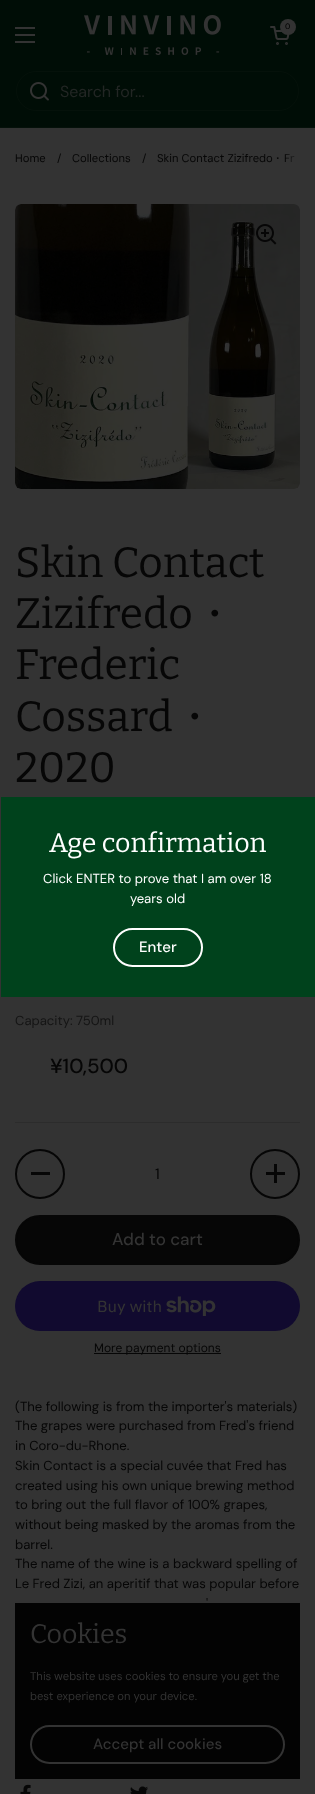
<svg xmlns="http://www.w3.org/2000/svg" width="315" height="1794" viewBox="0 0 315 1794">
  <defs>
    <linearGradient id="g1" gradientUnits="userSpaceOnUse" x1="315" y1="158" x2="285" y2="158"><stop offset="0.5" stop-color="#333333"/><stop offset="1" stop-color="#333333" stop-opacity="0"/></linearGradient>
  </defs>
  <rect width="100%" height="100%" fill="#333333"/>
  <rect x="0" y="0" width="315" height="127" fill="#000d06"/>
  <rect x="15" y="27" width="20" height="2" fill="#333333"/>
  <rect x="15" y="34" width="20" height="2" fill="#333333"/>
  <rect x="15" y="41" width="20" height="2" fill="#333333"/>
  <image x="84" y="15" width="137" height="40" href="img1.png"/>
  <image x="270" y="26" width="20" height="19" href="img2.png"/>
  <circle cx="288" cy="27" r="8" fill="#333333"/>
  <text x="285" y="29" font-family="'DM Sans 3'" font-size="8" font-weight="500" fill="#000000">0</text>
  <rect x="0" y="127" width="315" height="1" fill="#05110a"/>
  <rect x="16.5" y="71.5" width="282" height="39" rx="19.5" fill="none" stroke="#05110a"/>
  <image x="30" y="82" width="19" height="19" href="img3.png"/>
  <text x="60" y="97" font-family="'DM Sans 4'" font-size="16" fill="#222624">Search for...</text>
  <text x="15" y="162" font-family="'DM Sans 3'" font-size="11.25" fill="#060606">Home</text>
  <text x="57" y="162" font-family="'DM Sans 3'" font-size="11.25" fill="#060606">/</text>
  <text x="72" y="162" font-family="'DM Sans 3'" font-size="11.25" fill="#060606">Collections</text>
  <text x="142" y="162" font-family="'DM Sans 3'" font-size="11.25" fill="#060606">/</text>
  <text x="157" y="162" font-family="'DM Sans 3'" font-size="11.25" fill="#060606">Skin Contact Zizifredo</text>
  <text x="272" y="162" font-family="WenQuanYi Zen Hei" font-size="11.25" font-weight="500" fill="#060606">・</text>
  <text x="284" y="162" font-family="'DM Sans 3'" font-size="11.25" fill="#060606">Fr</text>
  <rect x="286" y="154" width="8" height="8" fill="url(#g1)"/>
  <image x="15" y="204" width="285" height="285" href="img4.png"/>
  <image x="256" y="224" width="21" height="21" href="img5.png"/>
  <text x="15" y="577" font-family="Bitter" font-size="42.5" fill="#060606">Skin Contact</text>
  <text x="15" y="628" font-family="Bitter" font-size="42.5" fill="#060606">Zizifredo</text>
  <text x="193" y="628" font-family="WenQuanYi Zen Hei" font-size="42.5" font-weight="500" fill="#060606">・</text>
  <text x="15" y="679" font-family="Bitter" font-size="42.5" fill="#060606">Frederic</text>
  <text x="15" y="731" font-family="Bitter" font-size="42.5" fill="#060606">Cossard</text>
  <text x="173" y="731" font-family="WenQuanYi Zen Hei" font-size="42.5" font-weight="500" fill="#060606">・</text>
  <text x="15" y="782" font-family="Bitter" font-size="42.5" fill="#060606">2020</text>
  <text x="15" y="1025" font-family="DM Sans" font-size="13.1" fill="#151515">Capacity: 750ml</text>
  <text x="50" y="1073" font-family="DM Sans" font-size="20.5" font-weight="500" fill="#060606">¥10,500</text>
  <rect x="15" y="1122" width="285" height="1" fill="#2c2c2c"/>
  <circle cx="40" cy="1174" r="24" fill="none" stroke="#060606" stroke-width="2"/>
  <rect x="31" y="1172" width="19" height="3" fill="#060606"/>
  <text x="155" y="1179" font-family="'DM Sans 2'" font-size="15" fill="#060606">1</text>
  <circle cx="275" cy="1174" r="24" fill="none" stroke="#060606" stroke-width="2"/>
  <rect x="274" y="1164" width="3" height="19" fill="#060606"/>
  <rect x="266" y="1172" width="19" height="3" fill="#060606"/>
  <rect x="16" y="1216" width="283" height="48" rx="24" fill="#060606" stroke="#060606" stroke-width="2"/>
  <text x="112" y="1245" font-family="'DM Sans 2'" font-size="17" font-weight="500" fill="#333333">Add to cart</text>
  <rect x="15" y="1281" width="285" height="50" rx="25" fill="#110a2f"/>
  <text x="97" y="1312" font-family="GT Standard" font-size="16" fill="#333333">Buy with</text>
  <image x="166" y="1296" width="50" height="20" href="img6.png"/>
  <rect x="94" y="1353" width="127" height="1" fill="#060606"/>
  <text x="94" y="1352" font-family="'DM Sans 3'" font-size="12" fill="#060606">More payment options</text>
  <text x="15" y="1411" font-family="DM Sans" font-size="13.1" fill="#060606">(The following is from the importer's materials)</text>
  <text x="15" y="1430" font-family="DM Sans" font-size="13.1" fill="#060606">The grapes were purchased from Fred's friend</text>
  <text x="15" y="1450" font-family="DM Sans" font-size="13.1" fill="#060606">in Coro-du-Rhone.</text>
  <text x="15" y="1470" font-family="DM Sans" font-size="13.1" fill="#060606">Skin Contact is a special cuvée that Fred has</text>
  <text x="15" y="1490" font-family="DM Sans" font-size="13.1" fill="#060606">created using his own unique brewing method</text>
  <text x="15" y="1509" font-family="DM Sans" font-size="13.1" fill="#060606">to bring out the full flavor of 100% grapes,</text>
  <text x="15" y="1529" font-family="DM Sans" font-size="13.1" fill="#060606">without being masked by the aromas from the</text>
  <text x="15" y="1549" font-family="DM Sans" font-size="13.1" fill="#060606">barrel.</text>
  <text x="15" y="1568" font-family="DM Sans" font-size="13.1" fill="#060606">The name of the wine is a backward spelling of</text>
  <text x="15" y="1588" font-family="DM Sans" font-size="13.1" fill="#060606">Le Fred Zizi, an aperitif that was popular before</text>
  <text x="206" y="1608" font-family="DM Sans" font-size="13.1" fill="#060606">'</text>
  <image x="20" y="1784" width="11" height="10" href="img7.png"/>
  <image x="130" y="1786" width="18" height="8" href="img8.png"/>
  <rect x="1" y="797" width="314" height="200" fill="#00421c"/>
  <text x="49" y="852" font-family="Bitter" font-size="26.75" fill="#ffffff">Age confirmation</text>
  <text x="43" y="883" font-family="DM Sans" font-size="13.1" fill="#ffffff">Click ENTER to prove that I am over 18</text>
  <text x="130" y="903" font-family="DM Sans" font-size="13.1" fill="#ffffff">years old</text>
  <rect x="114" y="929" width="88" height="37" rx="18.5" fill="none" stroke="#ffffff" stroke-width="2"/>
  <text x="139" y="952" font-family="'DM Sans 4'" font-size="15" font-weight="500" fill="#ffffff">Enter</text>
  <rect x="15" y="1603" width="285" height="176" fill="#030303"/>
  <text x="30" y="1643" font-family="Bitter" font-size="26.75" fill="#333333">Cookies</text>
  <text x="30" y="1680" word-spacing="-0.25" font-family="'DM Sans 3'" font-size="11.25" fill="#333333">This website uses cookies to ensure you get the</text>
  <text x="30" y="1700" font-family="'DM Sans 3'" font-size="11.25" fill="#333333">best experience on your device.</text>
  <rect x="31" y="1726" width="253" height="37" rx="18.5" fill="none" stroke="#333333" stroke-width="2"/>
  <text x="93" y="1749" font-family="'DM Sans 4'" font-size="15" font-weight="500" fill="#333333">Accept all cookies</text>
</svg>
